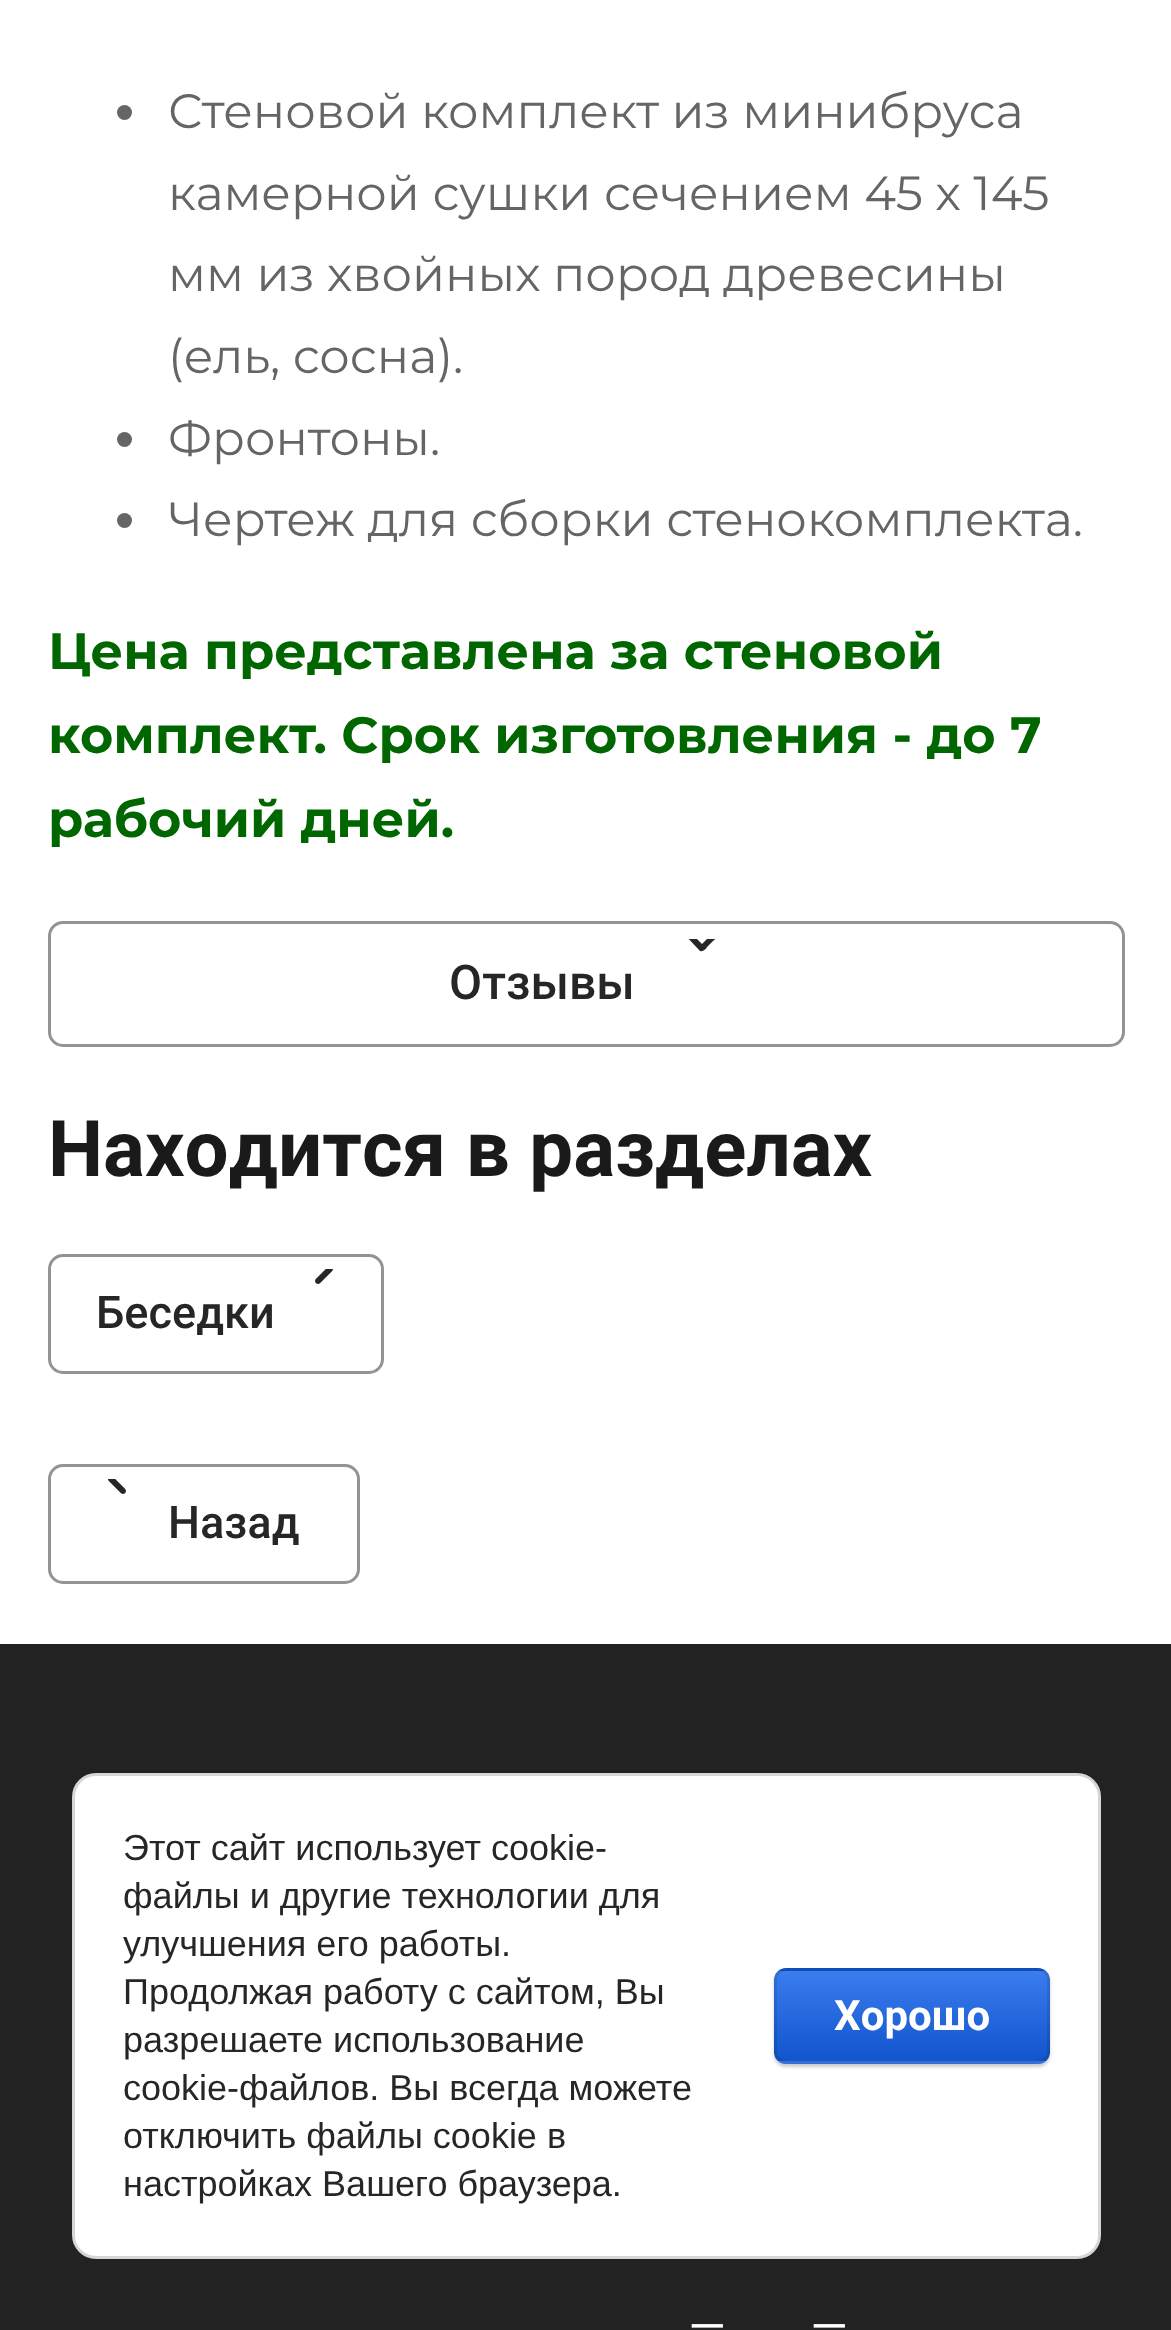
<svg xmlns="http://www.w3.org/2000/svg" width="1171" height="2330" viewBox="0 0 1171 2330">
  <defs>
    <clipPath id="clip1"><rect x="657" y="939" width="90" height="90"/></clipPath>
    <filter id="blur1" x="-50%" y="-200%" width="200%" height="500%"><feGaussianBlur stdDeviation="1.5"/></filter>
    <clipPath id="clip2"><rect x="774" y="1968" width="276" height="96" rx="12"/></clipPath>
    <linearGradient id="g1" gradientUnits="userSpaceOnUse" x1="912" y1="1881" x2="912" y2="1971"><stop offset="0" stop-color="#3b7cef"/><stop offset="1" stop-color="#1155cc"/></linearGradient>
    <linearGradient id="g2" gradientUnits="userSpaceOnUse" x1="912" y1="1971" x2="912" y2="2061"><stop offset="0" stop-color="#3b7cef"/><stop offset="1" stop-color="#1155cc"/></linearGradient>
    <linearGradient id="g3" gradientUnits="userSpaceOnUse" x1="912" y1="2061" x2="912" y2="2151"><stop offset="0" stop-color="#3b7cef"/><stop offset="1" stop-color="#1155cc"/></linearGradient>
  </defs>
  <rect width="100%" height="100%" fill="#ffffff"/>
  <circle cx="124.5" cy="112.5" r="7.5" fill="#656565"/>
  <text x="168" y="128" font-family="Montserrat" font-size="48" fill="#656565">Стеновой комплект из минибруса</text>
  <text x="168" y="210" font-family="Montserrat" font-size="48" fill="#656565">камерной сушки сечением 45 х 145</text>
  <text x="168" y="291" font-family="Montserrat" font-size="48" fill="#656565">мм из хвойных пород древесины</text>
  <text x="168" y="373" font-family="Montserrat" font-size="48" fill="#656565">(ель, сосна).</text>
  <circle cx="124.5" cy="439.5" r="7.5" fill="#656565"/>
  <text x="168" y="455" font-family="Montserrat" font-size="48" fill="#656565">Фронтоны.</text>
  <circle cx="124.5" cy="520.5" r="7.5" fill="#656565"/>
  <text x="168" y="536" font-family="Montserrat" font-size="48" fill="#656565">Чертеж для сборки стенокомплекта.</text>
  <text x="48" y="669" font-family="Montserrat" font-size="51" font-weight="bold" fill="#006600">Цена представлена за стеновой</text>
  <text x="48" y="753" font-family="Montserrat" font-size="51" font-weight="bold" fill="#006600">комплект. Срок изготовления - до 7</text>
  <text x="48" y="837" font-family="Montserrat" font-size="51" font-weight="bold" fill="#006600">рабочий дней.</text>
  <rect x="49.5" y="922.5" width="1074" height="123" rx="13.5" fill="none" stroke="#939393" stroke-width="3"/>
  <g clip-path="url(#clip1)">
    <path d="M718 928L721 927C729 929 714 940 713 941L707 947C706 949 703 952 700 951L685 935C683 934 680 931 681 928C684 924 690 932 691 933L702 944Z" fill="#262626" fill-rule="evenodd"/>
  </g>
  <text x="449" y="999" font-family="Roboto" font-size="48" font-weight="500" fill="#262626">Отзывы</text>
  <text x="48" y="1176" font-family="Roboto" font-size="78" font-weight="bold" fill="#1a1a1a">Находится в разделах</text>
  <rect x="49.5" y="1255.5" width="333" height="117" rx="13.5" fill="none" stroke="#939393" stroke-width="3"/>
  <image x="315" y="1269" width="18" height="15" href="img1.png"/>
  <text x="96" y="1328" font-family="Roboto" font-size="45" font-weight="500" fill="#262626">Беседки</text>
  <rect x="49.5" y="1465.5" width="309" height="117" rx="13.5" fill="none" stroke="#939393" stroke-width="3"/>
  <image x="108" y="1479" width="18" height="15" href="img2.png"/>
  <text x="168" y="1538" font-family="Roboto" font-size="45" font-weight="500" fill="#262626">Назад</text>
  <rect x="0" y="1644" width="1171" height="686" fill="#222222"/>
  <text x="689" y="2351" font-family="Yeseva One" font-size="78" fill="#fffefe">-</text>
  <text x="811" y="2351" font-family="Yeseva One" font-size="78" fill="#fffefe">-</text>
  <rect x="73.5" y="1774.5" width="1026" height="483" rx="22.5" fill="#ffffff" stroke="#d6d6d6" stroke-width="3"/>
  <text x="123" y="1860" font-family="Liberation Sans" font-size="36" fill="#262626">Этот сайт использует cookie-</text>
  <text x="123" y="1908" font-family="Liberation Sans" font-size="36" fill="#262626">файлы и другие технологии для</text>
  <text x="123" y="1956" font-family="Liberation Sans" font-size="36" fill="#262626">улучшения его работы.</text>
  <text x="123" y="2004" font-family="Liberation Sans" font-size="36" fill="#262626">Продолжая работу с сайтом, Вы</text>
  <text x="123" y="2052" font-family="Liberation Sans" font-size="36" fill="#262626">разрешаете использование</text>
  <text x="123" y="2100" font-family="Liberation Sans" font-size="36" fill="#262626">cookie-файлов. Вы всегда можете</text>
  <text x="123" y="2148" font-family="Liberation Sans" font-size="36" fill="#262626">отключить файлы cookie в</text>
  <text x="123" y="2196" font-family="Liberation Sans" font-size="36" fill="#262626">настройках Вашего браузера.</text>
  <rect x="774" y="1971" width="276" height="96" rx="12" fill="#000000" fill-opacity="0.2" filter="url(#blur1)"/>
  <g clip-path="url(#clip2)">
    <rect x="774" y="1968" width="276" height="3" fill="url(#g1)"/>
    <rect x="774" y="1971" width="276" height="90" fill="url(#g2)"/>
    <rect x="774" y="2061" width="276" height="3" fill="url(#g3)"/>
  </g>
  <rect x="775.5" y="1969.5" width="273" height="93" rx="10.5" fill="none" stroke="#000000" stroke-opacity="0.1" stroke-width="3"/>
  <text x="834" y="2030" font-family="Roboto" font-size="42" font-weight="bold" fill="#fffefe">Хорошо</text>
</svg>
